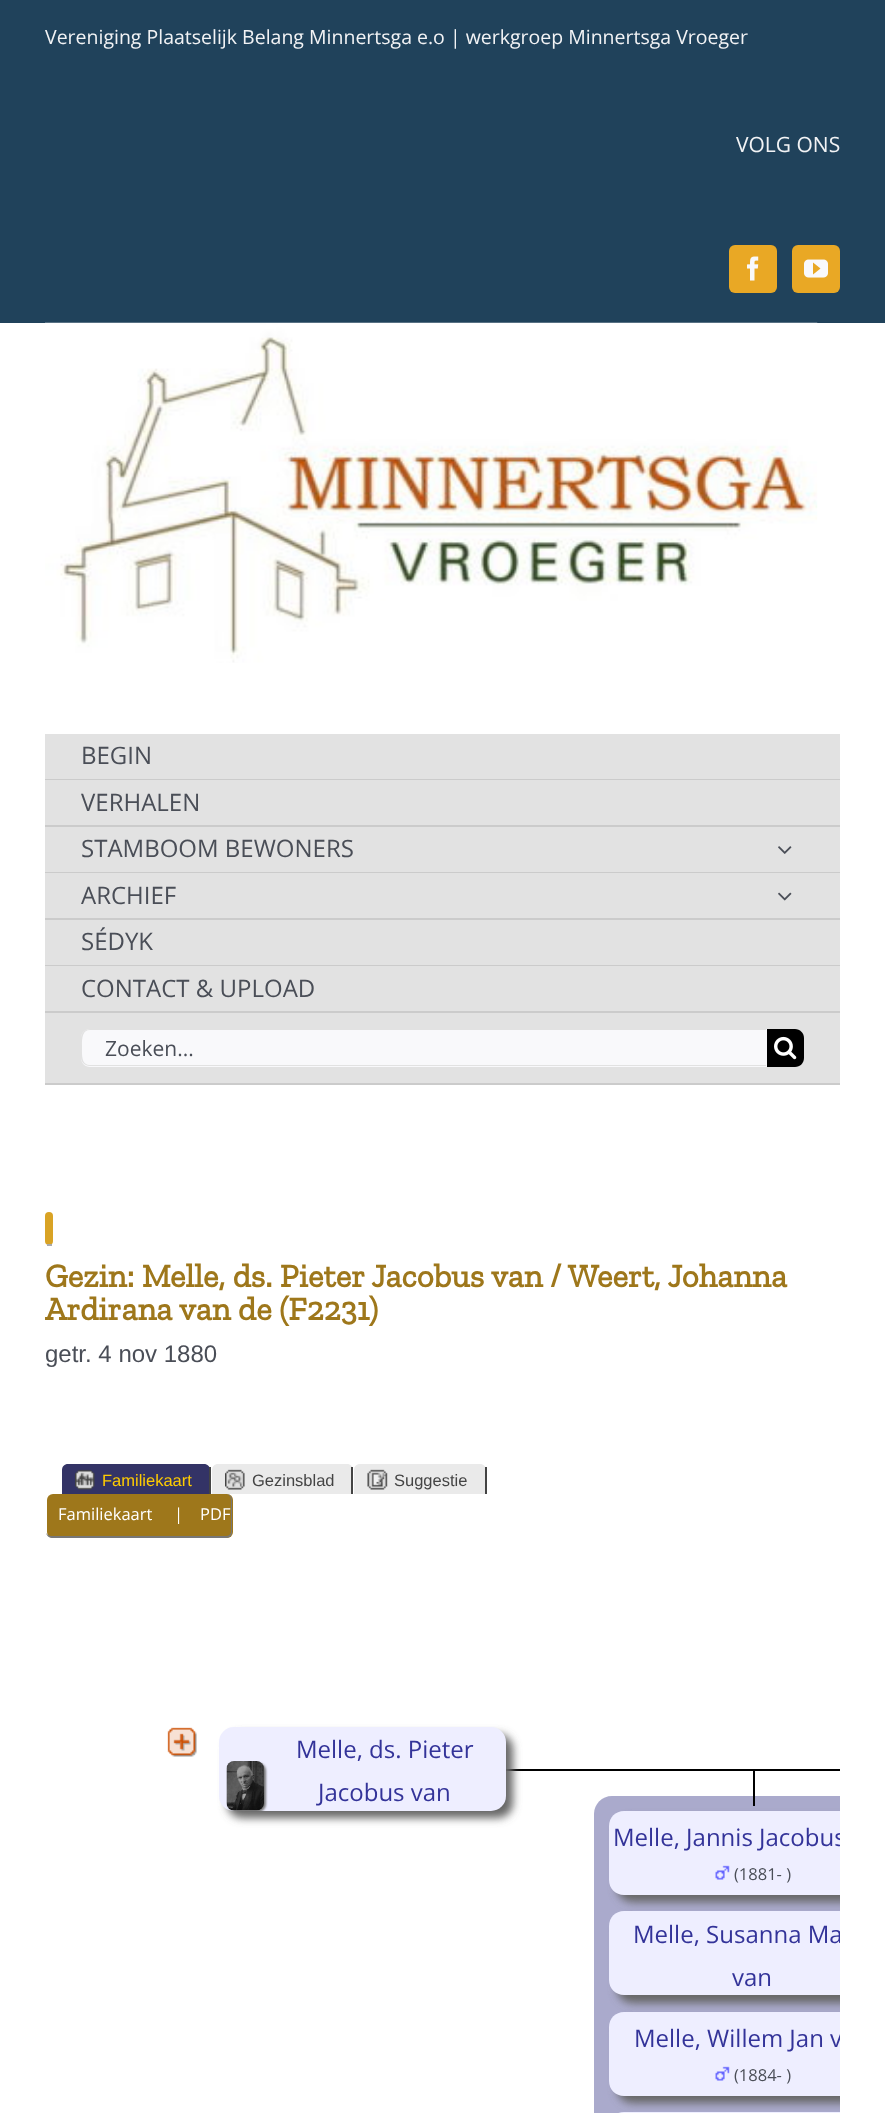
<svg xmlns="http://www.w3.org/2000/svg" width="885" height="2113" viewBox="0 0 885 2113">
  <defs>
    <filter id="blur1" x="-50%" y="-200%" width="200%" height="500%"><feGaussianBlur stdDeviation="4"/></filter>
    <clipPath id="clip1"><rect x="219" y="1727" width="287" height="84" rx="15"/></clipPath>
    <filter id="blur2" x="-50%" y="-200%" width="200%" height="500%"><feGaussianBlur stdDeviation="1"/></filter>
    <clipPath id="clip2"><rect x="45" y="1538" width="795" height="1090"/></clipPath>
    <clipPath id="clip3"><rect x="45" y="1538" width="795" height="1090"/></clipPath>
  </defs>
  <rect width="100%" height="100%" fill="#ffffff"/>
  <rect x="0" y="0" width="885" height="323" fill="#20425b"/>
  <text x="45" y="44" font-family="Open Sans" font-size="19.5" fill="#f2f3f5">Vereniging Plaatselijk Belang Minnertsga e.o | werkgroep Minnertsga Vroeger</text>
  <text x="736" y="152" font-family="Open Sans" font-size="21" fill="#f2f3f5">VOLG ONS</text>
  <rect x="729" y="245" width="48" height="48" rx="6" fill="#e9a825"/>
  <image x="747" y="256" width="12" height="25" href="img1.png"/>
  <rect x="792" y="245" width="48" height="48" rx="6" fill="#e9a825"/>
  <image x="804" y="259" width="24" height="19" href="img2.png"/>
  <image x="45" y="322" width="773" height="341" href="img3.png"/>
  <rect x="45" y="734" width="795" height="349" fill="#e2e2e2"/>
  <rect x="45" y="779" width="795" height="1" fill="#cbcbcb"/>
  <text x="81" y="764" font-family="Open Sans" font-size="24" fill="#4a4e57">BEGIN</text>
  <rect x="45" y="825" width="795" height="2" fill="#cbcbcb"/>
  <text x="81" y="811" font-family="Open Sans" font-size="24" fill="#4a4e57">VERHALEN</text>
  <rect x="45" y="872" width="795" height="1" fill="#cbcbcb"/>
  <text x="81" y="857" font-family="Open Sans" font-size="24" fill="#4a4e57">STAMBOOM BEWONERS</text>
  <image x="778" y="846" width="14" height="8" href="img4.png"/>
  <rect x="45" y="918" width="795" height="2" fill="#cbcbcb"/>
  <text x="81" y="904" font-family="Open Sans" font-size="24" fill="#4a4e57">ARCHIEF</text>
  <image x="778" y="892" width="14" height="9" href="img5.png"/>
  <rect x="45" y="965" width="795" height="1" fill="#cbcbcb"/>
  <text x="81" y="950" font-family="Open Sans" font-size="24" fill="#4a4e57">SÉDYK</text>
  <rect x="45" y="1011" width="795" height="2" fill="#cbcbcb"/>
  <text x="81" y="997" font-family="Open Sans" font-size="24" fill="#4a4e57">CONTACT &amp; UPLOAD</text>
  <rect x="45" y="1083" width="795" height="2" fill="#cbcbcb"/>
  <path d="M90 1029H767V1067H90C85 1067 81 1063 81 1058V1038C81 1033 85 1029 90 1029Z" fill="#f9f9fb"/>
  <path d="M90 1029H766V1066H90C85 1066 81 1062 81 1058V1038C81 1033 85 1029 90 1029ZM90 1030H766V1065H90C81 1065 82 1054 82 1048C82 1042 81 1030 90 1030Z" fill="#e2e2e2" fill-rule="evenodd"/>
  <text x="105" y="1056" font-family="Open Sans" font-size="21" fill="#4a4e57">Zoeken...</text>
  <path d="M767 1029H795C800 1029 804 1033 804 1038V1058C804 1063 800 1067 795 1067H767Z" fill="#000000"/>
  <image x="774" y="1036" width="23" height="24" href="img6.png"/>
  <rect x="45" y="1212" width="8" height="33" rx="4" fill="#d9a325"/>
  <rect x="47" y="1244" width="5" height="2" fill="#aaaaaa"/>
  <text x="45" y="1287" font-family="Zilla Slab" font-size="33" font-weight="bold" fill="#9e771b">Gezin: Melle, ds. Pieter Jacobus van / Weert, Johanna</text>
  <text x="45" y="1320" font-family="Zilla Slab" font-size="33" font-weight="bold" fill="#9e771b">Ardirana van de (F2231)</text>
  <text x="45" y="1362" font-family="Liberation Sans" font-size="24" fill="#4a4e57">getr. 4 nov 1880</text>
  <path d="M68 1464H204C207.5 1464 210 1466.5 210 1470V1494H62V1470C62 1466.5 64.5 1464 68 1464Z" fill="#333366"/>
  <rect x="209" y="1467" width="2" height="27" fill="#444444"/>
  <image x="75" y="1469" width="20" height="21" href="img7.png"/>
  <text x="102" y="1486" font-family="Liberation Sans" font-size="16.5" fill="#ffcc00">Familiekaart</text>
  <path d="M218 1464H347C350.5 1464 353 1466.5 353 1470V1494H212V1470C212 1466.5 214.5 1464 218 1464Z" fill="#eaeaea"/>
  <rect x="351" y="1467" width="2" height="27" fill="#444444"/>
  <image x="225" y="1469" width="20" height="21" href="img8.png"/>
  <text x="252" y="1486" font-family="Liberation Sans" font-size="16.5" fill="#444444">Gezinsblad</text>
  <path d="M360 1464H480C483.5 1464 486 1466.5 486 1470V1494H354V1470C354 1466.5 356.5 1464 360 1464Z" fill="#eaeaea"/>
  <rect x="485" y="1467" width="2" height="27" fill="#444444"/>
  <image x="367" y="1469" width="21" height="21" href="img9.png"/>
  <text x="394" y="1486" font-family="Liberation Sans" font-size="16.5" fill="#444444">Suggestie</text>
  <rect x="47" y="1494" width="186" height="44" rx="6" fill="#9e771b"/>
  <path d="M52 1494H226C230 1494 232 1497 232 1500V1532C232 1535 230 1538 226 1538H52C49 1538 46 1535 46 1532V1500C46 1497 49 1494 52 1494ZM52 1494H226C229 1494 231 1497 231 1500V1532C231 1534 229 1536 226 1536H52C49 1536 46 1534 46 1532V1500C46 1497 49 1494 52 1494Z" fill="#777777" fill-rule="evenodd"/>
  <text x="58" y="1520" font-family="Open Sans" font-size="16.5" fill="#ffffff">Familiekaart</text>
  <text x="174" y="1520" font-family="Open Sans" font-size="16.5" fill="#ffffff">|</text>
  <text x="200" y="1520" font-family="Open Sans" font-size="16.5" fill="#ffffff">PDF</text>
  <image x="167" y="1727" width="30" height="30" href="img10.png"/>
  <rect x="506" y="1769" width="334" height="2" fill="#000000"/>
  <rect x="227" y="1734" width="286" height="84" rx="15" fill="#666666" filter="url(#blur1)"/>
  <rect x="219" y="1727" width="287" height="84" rx="15" fill="#eeeeff"/>
  <g clip-path="url(#clip1)">
    <rect x="228" y="1763" width="38" height="49" rx="8" fill="#777777" filter="url(#blur2)"/>
  </g>
  <image x="226" y="1761" width="38" height="50" href="img11.png"/>
  <text x="296" y="1758" font-family="Open Sans" font-size="24" fill="#333399">Melle, ds. Pieter</text>
  <text x="318" y="1801" font-family="Open Sans" font-size="24" fill="#333399">Jacobus van</text>
  <path d="M612 1796H840V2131H612C602 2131 594 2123 594 2113V1814C594 1804 602 1796 612 1796Z" fill="#aaaacc"/>
  <rect x="753" y="1769" width="2" height="37" fill="#000000"/>
  <g clip-path="url(#clip2)">
    <rect x="617" y="1818" width="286" height="84" rx="15" fill="#666666" filter="url(#blur1)"/>
  </g>
  <path d="M624 1811H840V1895H624C615.5 1895 609 1888.5 609 1880V1826C609 1817.5 615.5 1811 624 1811Z" fill="#eeeeff"/>
  <g clip-path="url(#clip3)">
    <text x="613" y="1846" font-family="Open Sans" font-size="24" fill="#333399">Melle, Jannis Jacobus</text>
  </g>
  <image x="715" y="1865" width="15" height="15" href="img12.png"/>
  <text x="734" y="1880" font-family="Open Sans" font-size="16.5" fill="#4a4e57">(1881- )</text>
  <g clip-path="url(#clip2)">
    <rect x="617" y="1919" width="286" height="84" rx="15" fill="#666666" filter="url(#blur1)"/>
  </g>
  <path d="M624 1911H840V1995H624C615.5 1995 609 1988.5 609 1980V1926C609 1917.5 615.5 1911 624 1911Z" fill="#eeeeff"/>
  <g clip-path="url(#clip3)">
    <text x="633" y="1943" font-family="Open Sans" font-size="24" fill="#333399">Melle, Susanna Ma</text>
  </g>
  <text x="732" y="1986" font-family="Open Sans" font-size="24" fill="#333399">van</text>
  <g clip-path="url(#clip2)">
    <rect x="617" y="2019" width="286" height="84" rx="15" fill="#666666" filter="url(#blur1)"/>
  </g>
  <path d="M624 2012H840V2096H624C615.5 2096 609 2089.5 609 2081V2027C609 2018.5 615.5 2012 624 2012Z" fill="#eeeeff"/>
  <g clip-path="url(#clip3)">
    <text x="634" y="2047" font-family="Open Sans" font-size="24" fill="#333399">Melle, Willem Jan v</text>
  </g>
  <image x="715" y="2066" width="15" height="15" href="img12.png"/>
  <text x="734" y="2081" font-family="Open Sans" font-size="16.5" fill="#4a4e57">(1884- )</text>
  <path d="M624 2112H840V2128H624C615.5 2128 609 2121.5 609 2113V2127C609 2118.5 615.5 2112 624 2112Z" fill="#eeeeff"/>
</svg>
